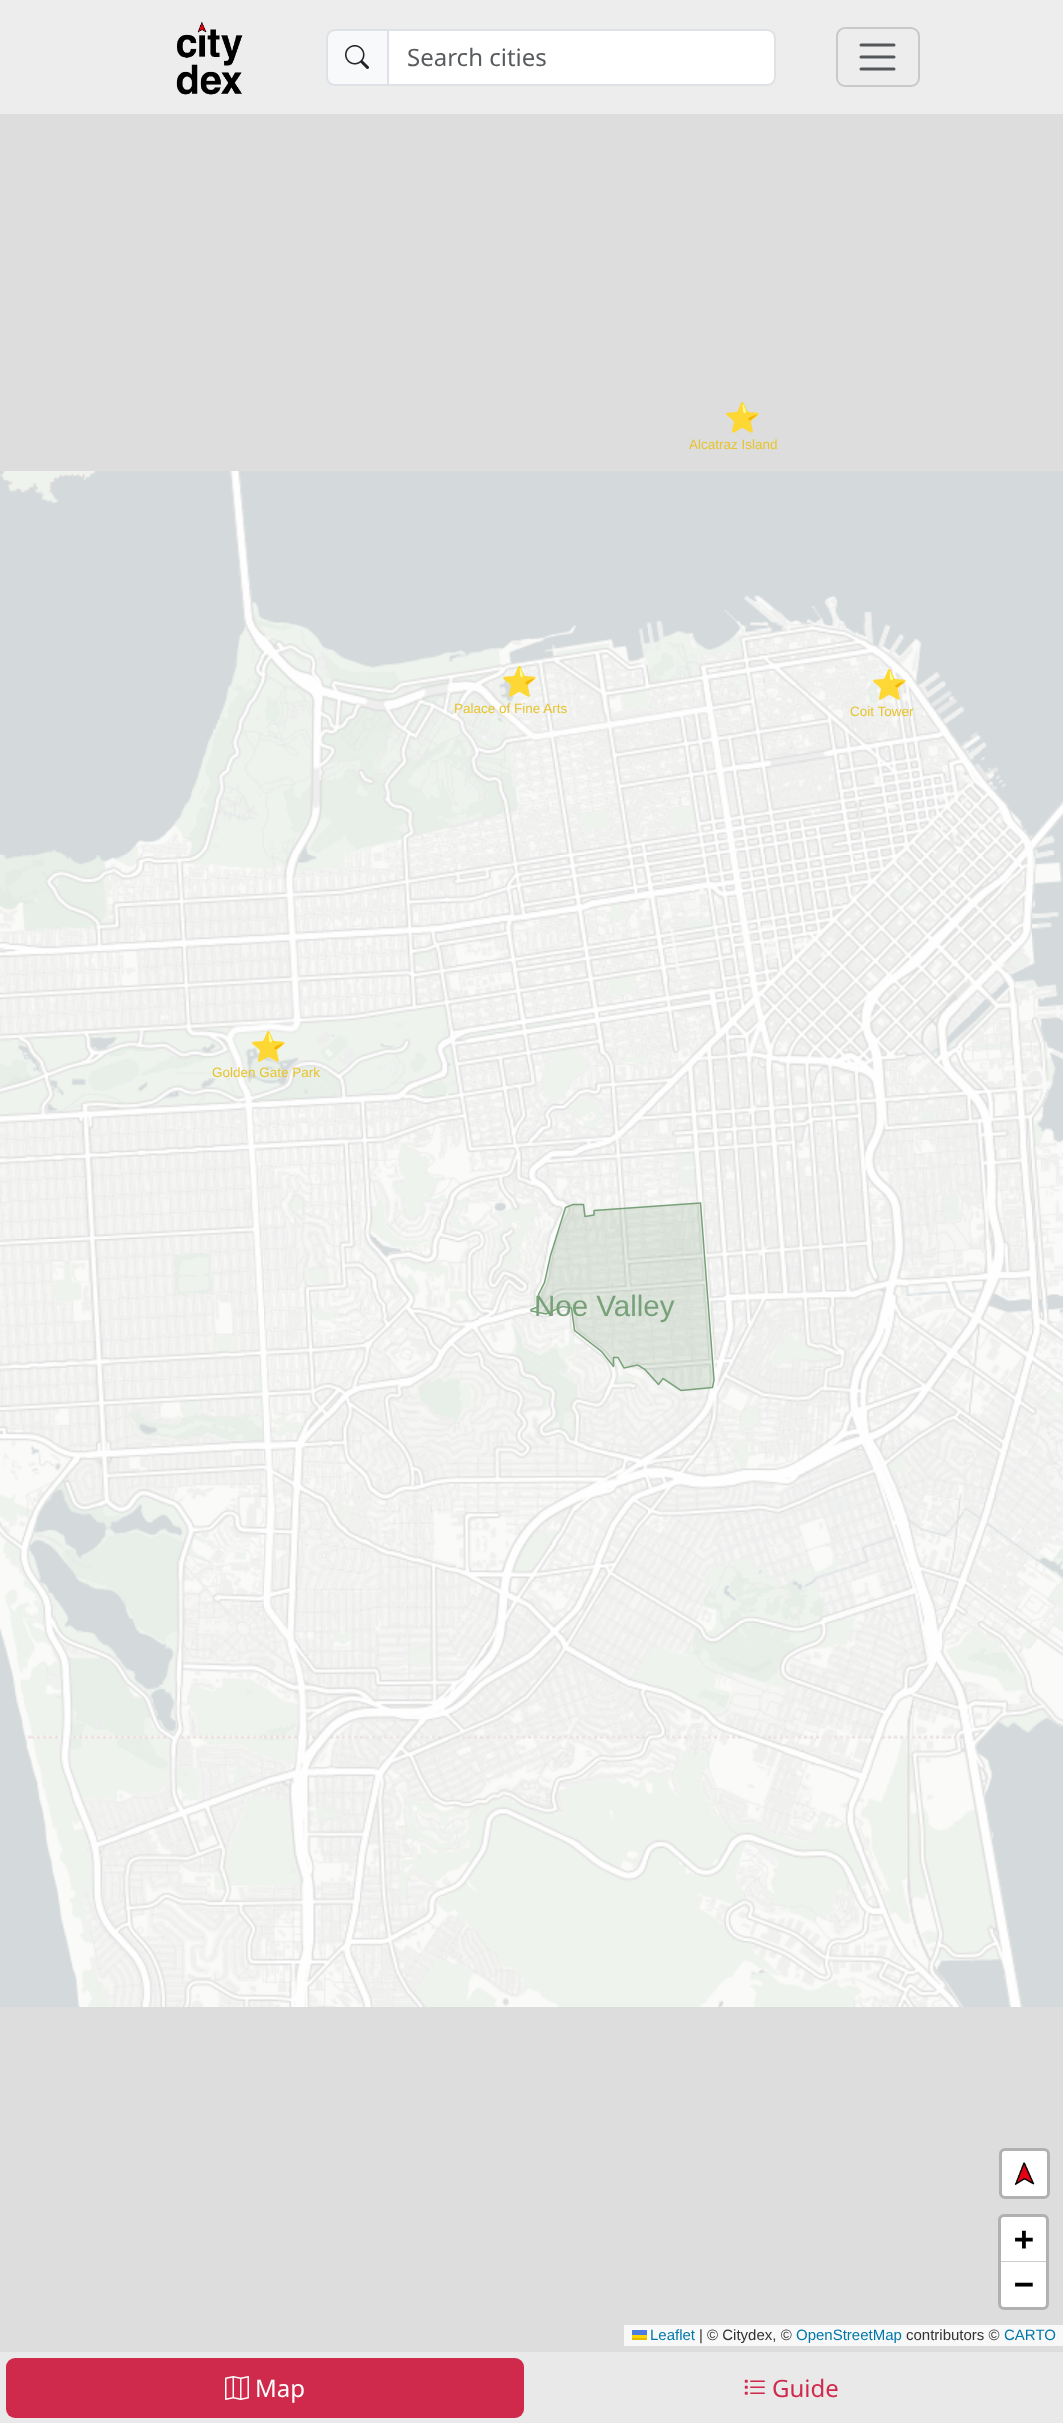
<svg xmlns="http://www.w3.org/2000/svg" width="1063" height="2423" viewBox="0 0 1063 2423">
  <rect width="100%" height="100%" fill="#dddddd"/>
  <rect x="0" y="0" width="1063" height="114" fill="#ededed"/>
  <image x="176" y="22" width="67" height="73" href="img1.png"/>
  <path d="M335 30H388V85H335C330.5 85 327 81.5 327 77V38C327 33.5 330.5 30 335 30Z" fill="#f8f9fa" stroke="#dee2e6" stroke-width="2"/>
  <image x="345" y="45" width="24" height="24" href="img2.png"/>
  <path d="M388 30H767C771.5 30 775 33.5 775 38V77C775 81.5 771.5 85 767 85H388Z" fill="#ffffff" stroke="#dee2e6" stroke-width="2"/>
  <text x="407" y="66" font-family="Noto Sans" font-size="24" fill="#595c5f">Search cities</text>
  <rect x="837" y="28" width="82" height="58" rx="8" fill="none" stroke="#c9c9c9" stroke-width="2"/>
  <path d="M861 45H894M861 57H894M861 69H894" fill="none" stroke="#54575a" stroke-width="3" stroke-linecap="round"/>
  <text x="724" y="428" font-family="Noto Color Emoji" font-size="29.5" fill="#2a2a2a">⭐</text>
  <text x="689" y="449" font-family="Liberation Sans" font-size="13.5" fill="#e6c430">Alcatraz Island</text>
  <image x="264" y="471" width="384" height="384" href="img4.png"/>
  <text x="501" y="692" font-family="Noto Color Emoji" font-size="29.5" fill="#2a2a2a">⭐</text>
  <image x="648" y="471" width="384" height="384" href="img5.png"/>
  <text x="871" y="695" font-family="Noto Color Emoji" font-size="29.5" fill="#2a2a2a">⭐</text>
  <text x="454" y="713" font-family="Liberation Sans" font-size="13.5" fill="#e6c430">Palace of Fine Arts</text>
  <text x="850" y="716" font-family="Liberation Sans" font-size="13.5" fill="#e6c430">Coit Tower</text>
  <image x="0" y="855" width="264" height="384" href="img7.png"/>
  <image x="264" y="855" width="384" height="384" href="img8.png"/>
  <text x="250" y="1057" font-family="Noto Color Emoji" font-size="29.5" fill="#2a2a2a">⭐</text>
  <text x="212" y="1077" font-family="Liberation Sans" font-size="13.5" fill="#e6c430">Golden Gate Park</text>
  <image x="264" y="1239" width="384" height="384" href="img12.png"/>
  <image x="648" y="1239" width="384" height="384" href="img13.png"/>
  <image x="648" y="855" width="384" height="384" href="img9.png"/>
  <image x="530" y="1202" width="185" height="190" href="img19.png"/>
  <text x="534" y="1316" font-family="Liberation Sans" font-size="29.5" fill="#78a179">Noe Valley</text>
  <image x="0" y="471" width="264" height="384" href="img3.png"/>
  <image x="1032" y="471" width="31" height="384" href="img6.png"/>
  <image x="1032" y="855" width="31" height="384" href="img10.png"/>
  <image x="0" y="1239" width="264" height="384" href="img11.png"/>
  <image x="1032" y="1239" width="31" height="384" href="img14.png"/>
  <image x="0" y="1623" width="264" height="384" href="img15.png"/>
  <image x="264" y="1623" width="384" height="384" href="img16.png"/>
  <image x="648" y="1623" width="384" height="384" href="img17.png"/>
  <image x="1032" y="1623" width="31" height="384" href="img18.png"/>
  <rect x="1000.5" y="2149.5" width="48" height="48" rx="4.5" fill="#ffffff" stroke="#b1b1b1" stroke-width="3"/>
  <image x="1014" y="2162" width="21" height="23" href="img20.png"/>
  <rect x="999.5" y="2215.5" width="48" height="93" rx="4.5" fill="none" stroke="#b1b1b1" stroke-width="3"/>
  <path d="M1004 2217H1043C1044.5 2217 1046 2218.5 1046 2220V2262H1001V2220C1001 2218.5 1002.5 2217 1004 2217Z" fill="#ffffff"/>
  <rect x="1001" y="2261" width="45" height="1" fill="#cccccc"/>
  <text x="1014" y="2250" font-family="DejaVu Sans Mono" font-size="33" font-weight="bold" fill="#000000">+</text>
  <path d="M1001 2262H1046V2304C1046 2305.5 1044.5 2307 1043 2307H1004C1002.5 2307 1001 2305.5 1001 2304Z" fill="#ffffff"/>
  <text x="1014" y="2295" font-family="DejaVu Sans Mono" font-size="33" font-weight="bold" fill="#000000">−</text>
  <rect x="624" y="2325" width="439" height="21" fill="#f8f8f8"/>
  <text x="650" y="2340" font-family="Liberation Sans" font-size="15" fill="#0078a8">Leaflet</text>
  <rect x="632" y="2330" width="15" height="5" fill="#4c7be1"/>
  <rect x="632" y="2335" width="15" height="3" fill="#ffd500"/>
  <rect x="632" y="2338" width="15" height="2" fill="#e0bc00"/>
  <text x="699" y="2340" font-family="Liberation Sans" font-size="15" fill="#333333">| © Citydex, ©</text>
  <text x="796" y="2340" font-family="Liberation Sans" font-size="15" fill="#0078a8">OpenStreetMap</text>
  <text x="906" y="2340" font-family="Liberation Sans" font-size="15" fill="#333333">contributors ©</text>
  <text x="1004" y="2340" font-family="Liberation Sans" font-size="15" fill="#0078a8">CARTO</text>
  <rect x="0" y="2352" width="1063" height="71" fill="#e9e9e9"/>
  <rect x="6" y="2358" width="518" height="60" rx="9" fill="#cf294b"/>
  <image x="225" y="2376" width="24" height="24" href="img21.png"/>
  <text x="255" y="2397" font-family="Noto Sans" font-size="24" fill="#ffffff">Map</text>
  <image x="744" y="2379" width="21" height="16" href="img22.png"/>
  <text x="772" y="2397" font-family="Noto Sans" font-size="24" fill="#cf294b">Guide</text>
</svg>
